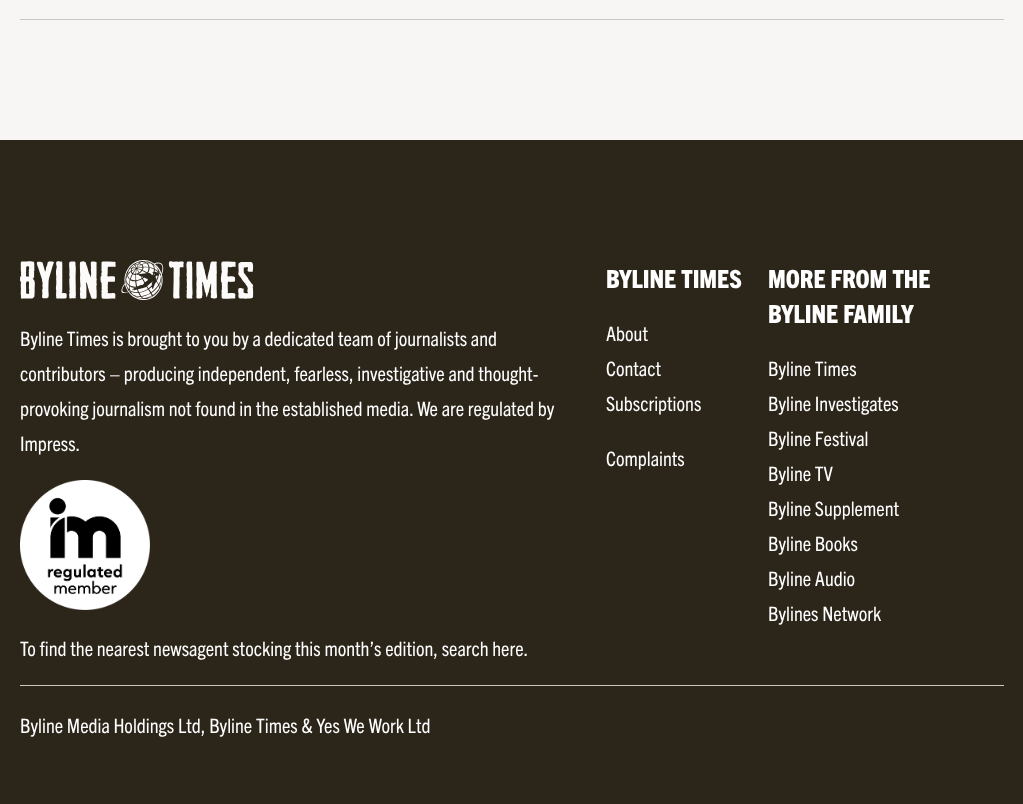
<svg xmlns="http://www.w3.org/2000/svg" width="1023" height="804" viewBox="0 0 1023 804">
  <rect width="100%" height="100%" fill="#f8f6f4"/>
  <rect x="20" y="19" width="984" height="1" fill="#cac7c1"/>
  <rect x="0" y="140" width="1023" height="664" fill="#2c251a"/>
  <image x="20" y="260" width="234" height="40" href="img1.png"/>
  <text x="20" y="346" font-family="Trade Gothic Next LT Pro" font-size="20" fill="#ffffff">Byline Times is brought to you by a dedicated team of journalists and</text>
  <text x="20" y="381" font-family="Trade Gothic Next LT Pro" font-size="20" fill="#ffffff">contributors – producing independent, fearless, investigative and thought-</text>
  <text x="20" y="416" font-family="Trade Gothic Next LT Pro" font-size="20" fill="#ffffff">provoking journalism not found in the established media. We are regulated by</text>
  <text x="20" y="451" font-family="Trade Gothic Next LT Pro" font-size="20" fill="#ffffff">Impress.</text>
  <image x="20" y="480" width="130" height="130" href="img2.png"/>
  <text x="20" y="656" font-family="Trade Gothic Next LT Pro" font-size="20" fill="#ffffff">To find the nearest newsagent stocking this month’s edition, search here.</text>
  <text x="606" y="288" font-family="Trade Gothic Next LT Pro" font-size="25" font-weight="800" fill="#ffffff">BYLINE TIMES</text>
  <text x="606" y="341" font-family="Trade Gothic Next LT Pro" font-size="20" fill="#ffffff">About</text>
  <text x="606" y="376" font-family="Trade Gothic Next LT Pro" font-size="20" fill="#ffffff">Contact</text>
  <text x="606" y="411" font-family="Trade Gothic Next LT Pro" font-size="20" fill="#ffffff">Subscriptions</text>
  <text x="606" y="466" font-family="Trade Gothic Next LT Pro" font-size="20" fill="#ffffff">Complaints</text>
  <text x="768" y="288" font-family="Trade Gothic Next LT Pro" font-size="25" font-weight="800" fill="#ffffff">MORE FROM THE</text>
  <text x="768" y="323" font-family="Trade Gothic Next LT Pro" font-size="25" font-weight="800" fill="#ffffff">BYLINE FAMILY</text>
  <text x="768" y="376" font-family="Trade Gothic Next LT Pro" font-size="20" fill="#ffffff">Byline Times</text>
  <text x="768" y="411" font-family="Trade Gothic Next LT Pro" font-size="20" fill="#ffffff">Byline Investigates</text>
  <text x="768" y="446" font-family="Trade Gothic Next LT Pro" font-size="20" fill="#ffffff">Byline Festival</text>
  <text x="768" y="481" font-family="Trade Gothic Next LT Pro" font-size="20" fill="#ffffff">Byline TV</text>
  <text x="768" y="516" font-family="Trade Gothic Next LT Pro" font-size="20" fill="#ffffff">Byline Supplement</text>
  <text x="768" y="551" font-family="Trade Gothic Next LT Pro" font-size="20" fill="#ffffff">Byline Books</text>
  <text x="768" y="586" font-family="Trade Gothic Next LT Pro" font-size="20" fill="#ffffff">Byline Audio</text>
  <text x="768" y="621" font-family="Trade Gothic Next LT Pro" font-size="20" fill="#ffffff">Bylines Network</text>
  <rect x="20" y="685" width="984" height="1" fill="#cac7c1"/>
  <text x="20" y="733" font-family="Trade Gothic Next LT Pro" font-size="20" fill="#ffffff">Byline Media Holdings Ltd, Byline Times &amp; Yes We Work Ltd</text>
</svg>
